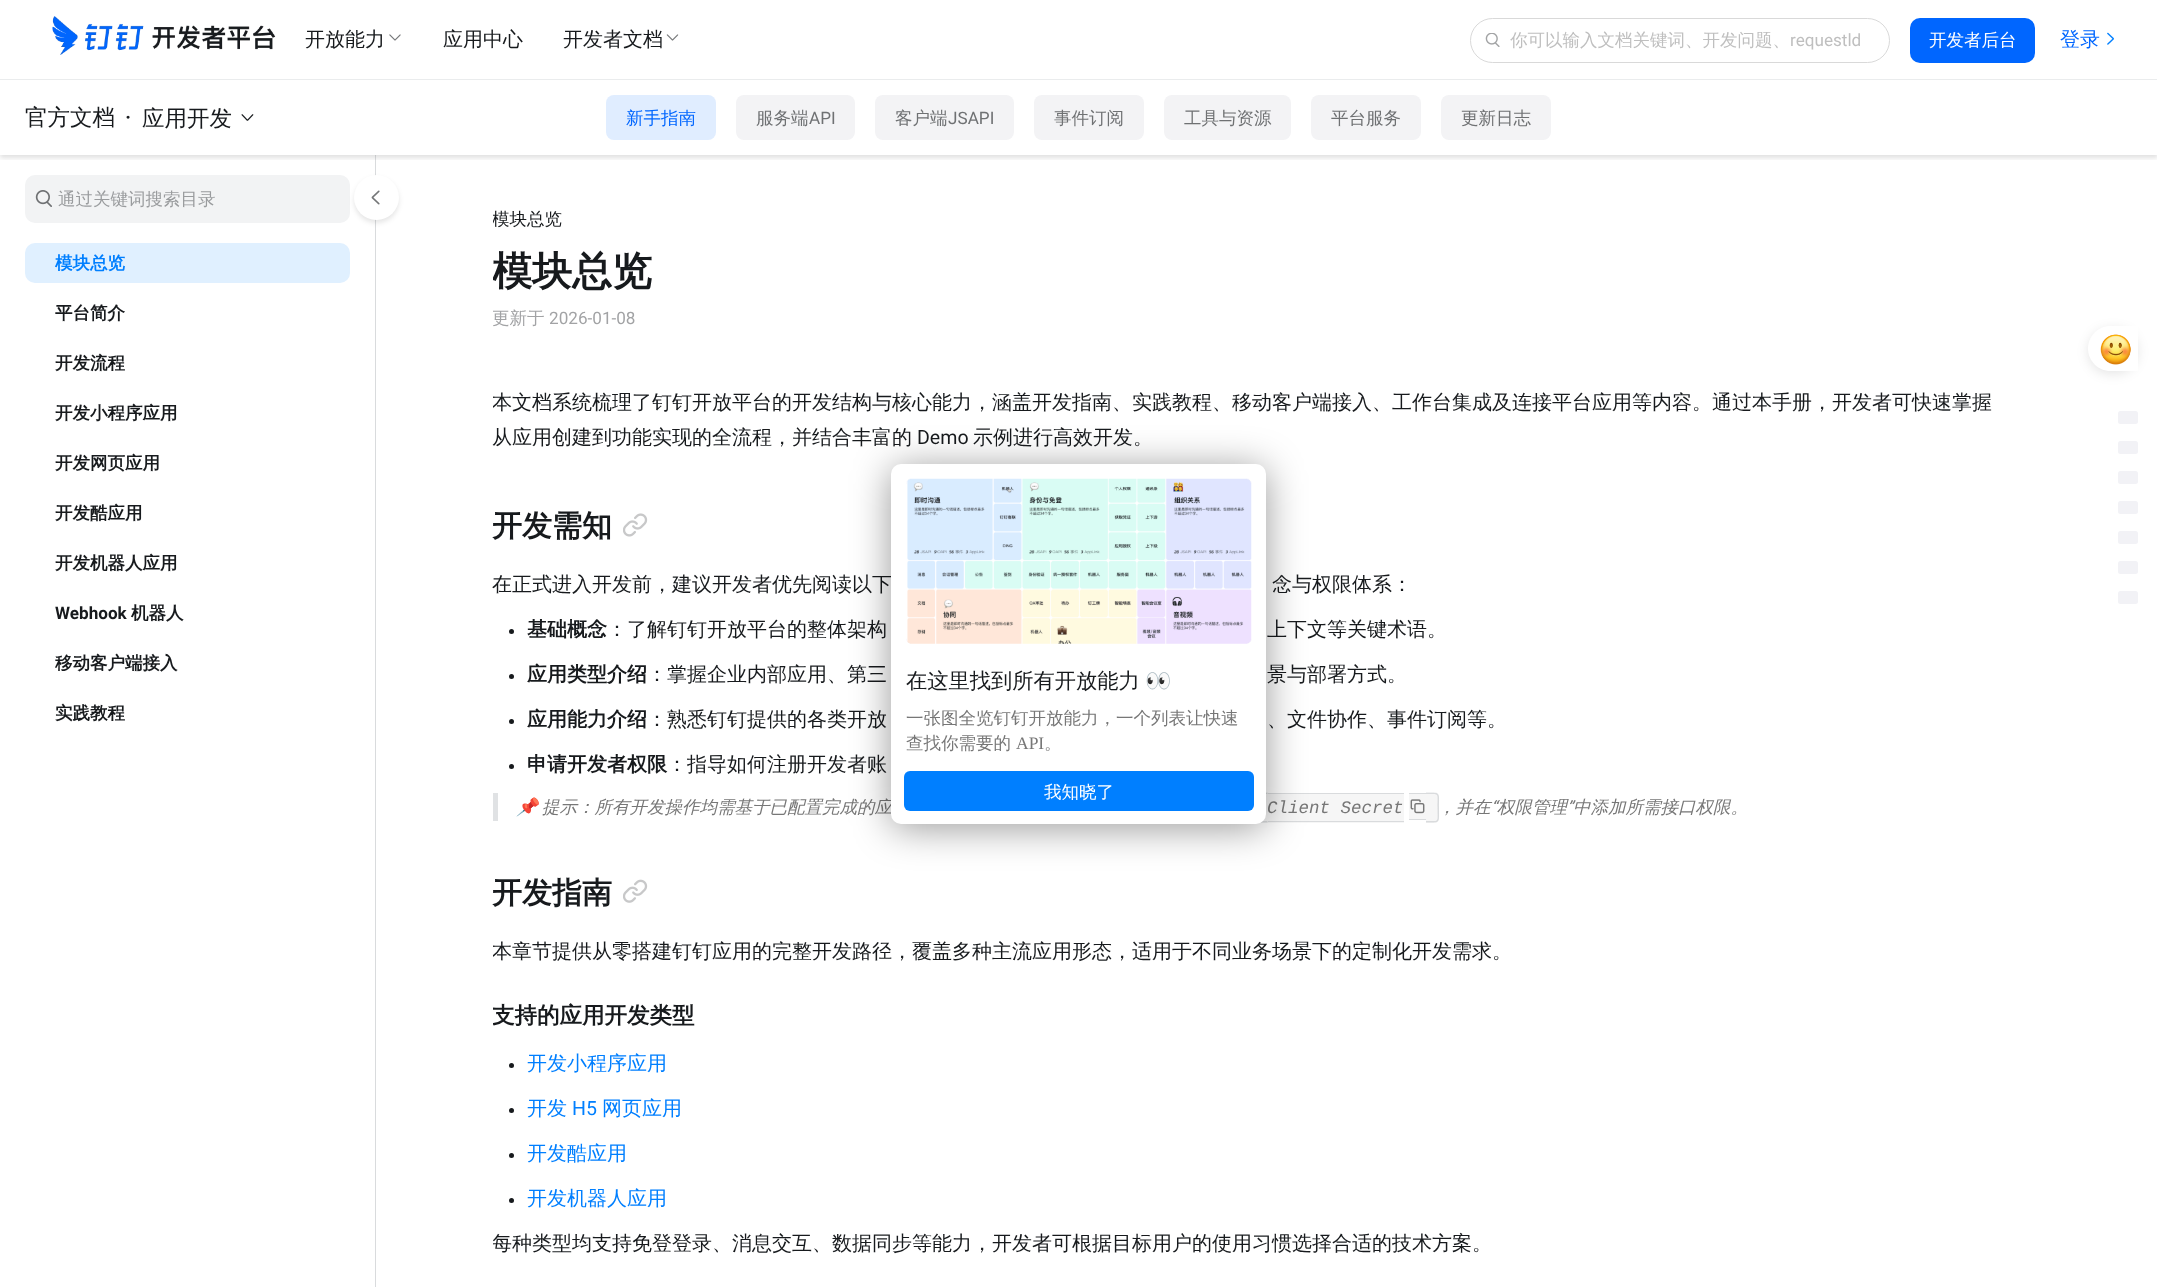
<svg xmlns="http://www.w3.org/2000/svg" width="2157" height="1287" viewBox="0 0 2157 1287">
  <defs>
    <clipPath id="clip1"><rect x="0" y="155" width="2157" height="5"/></clipPath>
    <filter id="blur1" x="-50%" y="-200%" width="200%" height="500%"><feGaussianBlur stdDeviation="2.5"/></filter>
    <clipPath id="clip2"><rect x="493" y="205" width="1500" height="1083"/></clipPath>
    <filter id="blur2" x="-50%" y="-200%" width="200%" height="500%"><feGaussianBlur stdDeviation="6"/></filter>
    <filter id="blur3" x="-50%" y="-200%" width="200%" height="500%"><feGaussianBlur stdDeviation="19"/></filter>
  </defs>
  <rect width="100%" height="100%" fill="#ffffff"/>
  <rect x="375" y="155" width="1" height="1132" fill="#f6f6f6"/>
  <g clip-path="url(#clip1)">
    <rect x="0" y="83" width="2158" height="75" fill="#000000" fill-opacity="0.12" filter="url(#blur1)"/>
  </g>
  <rect x="0" y="79" width="2157" height="1" fill="#eaeced"/>
  <image x="52" y="16" width="224" height="39" href="img1.png"/>
  <text x="305" y="46" font-family="WenQuanYi Zen Hei" font-size="20" font-weight="500" fill="#171a1d">开放能力</text>
  <image x="389" y="34" width="12" height="7" href="img2.png"/>
  <text x="443" y="46" font-family="WenQuanYi Zen Hei" font-size="20" font-weight="500" fill="#171a1d">应用中心</text>
  <text x="563" y="46" font-family="WenQuanYi Zen Hei" font-size="20" font-weight="500" fill="#171a1d">开发者文档</text>
  <image x="666" y="34" width="13" height="7" href="img3.png"/>
  <rect x="1470.5" y="18.5" width="419" height="44" rx="22" fill="none" stroke="#d9d9d9"/>
  <image x="1485" y="33" width="15" height="14" href="img4.png"/>
  <text x="1510" y="46" font-family="WenQuanYi Zen Hei" font-size="17.5" font-weight="500" fill="#bfbfbf">你可以输入文档关键词、开发问题、</text>
  <text x="1790" y="46" font-family="Roboto" font-size="17.5" fill="#bfbfbf">requestld</text>
  <rect x="1910" y="18" width="125" height="45" rx="10" fill="#0066ff"/>
  <text x="1929" y="46" font-family="WenQuanYi Zen Hei" font-size="17.5" font-weight="500" fill="#ffffff">开发者后台</text>
  <text x="2060" y="46" font-family="WenQuanYi Zen Hei" font-size="20" font-weight="500" fill="#0066ff">登录</text>
  <image x="2107" y="32" width="7" height="13" href="img5.png"/>
  <text x="25" y="125" font-family="WenQuanYi Zen Hei" font-size="22.5" font-weight="500" fill="#171a1d">官方文档</text>
  <text x="125" y="125" font-family="Roboto" font-size="22.5" font-weight="500" fill="#171a1d">·</text>
  <text x="142" y="126" font-family="WenQuanYi Zen Hei" font-size="22.5" font-weight="500" fill="#171a1d">应用开发</text>
  <image x="241" y="114" width="13" height="7" href="img6.png"/>
  <rect x="606" y="95" width="110" height="45" rx="8" fill="#e0edff"/>
  <text x="626" y="124" font-family="WenQuanYi Zen Hei" font-size="17.5" font-weight="500" fill="#0066ff">新手指南</text>
  <rect x="736" y="95" width="119" height="45" rx="8" fill="#f3f3f5"/>
  <text x="756" y="124" font-family="WenQuanYi Zen Hei" font-size="17.5" font-weight="500" fill="#6f7173">服务端</text>
  <text x="809" y="124" font-family="Roboto" font-size="17.5" fill="#6f7173">API</text>
  <rect x="875" y="95" width="139" height="45" rx="8" fill="#f3f3f5"/>
  <text x="895" y="124" font-family="WenQuanYi Zen Hei" font-size="17.5" font-weight="500" fill="#6f7173">客户端</text>
  <text x="948" y="124" font-family="Roboto" font-size="17.5" fill="#6f7173">JSAPI</text>
  <rect x="1034" y="95" width="110" height="45" rx="8" fill="#f3f3f5"/>
  <text x="1054" y="124" font-family="WenQuanYi Zen Hei" font-size="17.5" font-weight="500" fill="#6f7173">事件订阅</text>
  <rect x="1164" y="95" width="127" height="45" rx="8" fill="#f3f3f5"/>
  <text x="1184" y="124" font-family="WenQuanYi Zen Hei" font-size="17.5" font-weight="500" fill="#6f7173">工具与资源</text>
  <rect x="1311" y="95" width="110" height="45" rx="8" fill="#f3f3f5"/>
  <text x="1331" y="124" font-family="WenQuanYi Zen Hei" font-size="17.5" font-weight="500" fill="#6f7173">平台服务</text>
  <rect x="1441" y="95" width="110" height="45" rx="8" fill="#f3f3f5"/>
  <text x="1461" y="124" font-family="WenQuanYi Zen Hei" font-size="17.5" font-weight="500" fill="#6f7173">更新日志</text>
  <rect x="25" y="175" width="325" height="48" rx="10" fill="#f2f3f4"/>
  <image x="35" y="190" width="17" height="17" href="img7.png"/>
  <text x="58" y="205" font-family="WenQuanYi Zen Hei" font-size="17.5" font-weight="500" fill="#9a9c9e">通过关键词搜索目录</text>
  <rect x="25" y="243" width="325" height="40" rx="10" fill="#e0f0ff"/>
  <text x="55" y="269" font-family="WenQuanYi Zen Hei" font-size="17.5" font-weight="bold" fill="#007fff">模块总览</text>
  <text x="55" y="319" font-family="WenQuanYi Zen Hei" font-size="17.5" font-weight="bold" fill="#171a1d">平台简介</text>
  <text x="55" y="369" font-family="WenQuanYi Zen Hei" font-size="17.5" font-weight="bold" fill="#171a1d">开发流程</text>
  <text x="55" y="419" font-family="WenQuanYi Zen Hei" font-size="17.5" font-weight="bold" fill="#171a1d">开发小程序应用</text>
  <text x="55" y="469" font-family="WenQuanYi Zen Hei" font-size="17.5" font-weight="bold" fill="#171a1d">开发网页应用</text>
  <text x="55" y="519" font-family="WenQuanYi Zen Hei" font-size="17.5" font-weight="bold" fill="#171a1d">开发酷应用</text>
  <text x="55" y="569" font-family="WenQuanYi Zen Hei" font-size="17.5" font-weight="bold" fill="#171a1d">开发机器人应用</text>
  <text x="55" y="619" font-family="Roboto" font-size="17.5" font-weight="bold" fill="#171a1d">Webhook</text>
  <text x="131" y="619" font-family="WenQuanYi Zen Hei" font-size="17.5" font-weight="bold" fill="#171a1d">机器人</text>
  <text x="55" y="669" font-family="WenQuanYi Zen Hei" font-size="17.5" font-weight="bold" fill="#171a1d">移动客户端接入</text>
  <text x="55" y="719" font-family="WenQuanYi Zen Hei" font-size="17.5" font-weight="bold" fill="#171a1d">实践教程</text>
  <rect x="375" y="155" width="1" height="1132" fill="#7e868e" fill-opacity="0.24"/>
  <rect x="354" y="178" width="45" height="45" rx="22.5" fill="#000000" fill-opacity="0.1" filter="url(#blur1)"/>
  <circle cx="376.5" cy="197.5" r="22.5" fill="#ffffff"/>
  <image x="371" y="190" width="9" height="15" href="img8.png"/>
  <g clip-path="url(#clip2)">
    <text x="492" y="225" font-family="WenQuanYi Zen Hei" font-size="17.5" font-weight="500" fill="#171a1d">模块总览</text>
    <text x="492" y="285" font-family="WenQuanYi Zen Hei" font-size="40" font-weight="bold" fill="#171a1d">模块总览</text>
    <text x="492" y="324" font-family="WenQuanYi Zen Hei" font-size="17.5" font-weight="500" fill="#a2a3a5">更新于</text>
  </g>
  <text x="549" y="324" font-family="Roboto" font-size="17.5" fill="#a2a3a5">2026-01-08</text>
  <g clip-path="url(#clip2)">
    <text x="492" y="409" font-family="WenQuanYi Zen Hei" font-size="20" font-weight="500" fill="#171a1d">本文档系统梳理了钉钉开放平台的开发结构与核心能力，涵盖开发指南、实践教程、移动客户端接入、工作台集成及连接平台应用等内容。通过本手册，开发者可快速掌握</text>
  </g>
  <text x="492" y="444" font-family="WenQuanYi Zen Hei" font-size="20" font-weight="500" fill="#171a1d">从应用创建到功能实现的全流程，并结合丰富的</text>
  <text x="917" y="444" font-family="Roboto" font-size="20" fill="#171a1d">Demo</text>
  <text x="973" y="444" font-family="WenQuanYi Zen Hei" font-size="20" font-weight="500" fill="#171a1d">示例进行高效开发。</text>
  <text x="492" y="536" font-family="WenQuanYi Zen Hei" font-size="30" font-weight="bold" fill="#171a1d">开发需知</text>
  <image x="623" y="513" width="25" height="24" href="img9.png"/>
  <text x="492" y="591" font-family="WenQuanYi Zen Hei" font-size="20" font-weight="500" fill="#171a1d">在正式进入开发前，建议开发者优先阅读以下</text>
  <text x="1272" y="591" font-family="WenQuanYi Zen Hei" font-size="20" font-weight="500" fill="#171a1d">念与权限体系：</text>
  <circle cx="511.5" cy="631.5" r="2.5" fill="#171a1d"/>
  <text x="527" y="636" font-family="WenQuanYi Zen Hei" font-size="20" font-weight="bold" fill="#171a1d">基础概念</text>
  <text x="607" y="636" font-family="WenQuanYi Zen Hei" font-size="20" font-weight="500" fill="#171a1d">：了解钉钉开放平台的整体架构</text>
  <text x="1267" y="636" font-family="WenQuanYi Zen Hei" font-size="20" font-weight="500" fill="#171a1d">上下文等关键术语。</text>
  <circle cx="511.5" cy="676.5" r="2.5" fill="#171a1d"/>
  <text x="527" y="681" font-family="WenQuanYi Zen Hei" font-size="20" font-weight="bold" fill="#171a1d">应用类型介绍</text>
  <text x="647" y="681" font-family="WenQuanYi Zen Hei" font-size="20" font-weight="500" fill="#171a1d">：掌握企业内部应用、第三</text>
  <text x="1267" y="681" font-family="WenQuanYi Zen Hei" font-size="20" font-weight="500" fill="#171a1d">景与部署方式。</text>
  <circle cx="511.5" cy="721.5" r="2.5" fill="#171a1d"/>
  <text x="527" y="726" font-family="WenQuanYi Zen Hei" font-size="20" font-weight="bold" fill="#171a1d">应用能力介绍</text>
  <text x="647" y="726" font-family="WenQuanYi Zen Hei" font-size="20" font-weight="500" fill="#171a1d">：熟悉钉钉提供的各类开放</text>
  <text x="1267" y="726" font-family="WenQuanYi Zen Hei" font-size="20" font-weight="500" fill="#171a1d">、文件协作、事件订阅等。</text>
  <circle cx="511.5" cy="766.5" r="2.5" fill="#171a1d"/>
  <text x="527" y="771" font-family="WenQuanYi Zen Hei" font-size="20" font-weight="bold" fill="#171a1d">申请开发者权限</text>
  <text x="667" y="771" font-family="WenQuanYi Zen Hei" font-size="20" font-weight="500" fill="#171a1d">：指导如何注册开发者账</text>
  <rect x="493" y="793" width="5" height="28" fill="#e0e2e4"/>
  <text x="516" y="813" font-family="Noto Color Emoji" font-size="17.5" font-style="italic" fill="#777777">📌</text>
  <text x="542" y="813" font-family="WenQuanYi Zen Hei" font-size="17.5" font-weight="500" font-style="italic" fill="#777777">提示：所有开发操作均需基于已配置完成的应</text>
  <rect x="1260" y="793" width="8" height="30" fill="#f6f6f6"/>
  <path d="M1259 792.5H1267.5V822.5H1259C1256.5 822.5 1255 821 1255 819V796C1255 794 1256.5 792.5 1259 792.5ZM1259 794H1267.5V821H1259C1257.5 821 1256 820 1256 819V796C1256 795 1257.5 794 1259 794Z" fill="#7e868e" fill-opacity="0.24" fill-rule="evenodd"/>
  <rect x="1268" y="794" width="136" height="29" fill="#f6f6f6"/>
  <rect x="1268" y="793" width="136" height="1" fill="#d9dbdd"/>
  <rect x="1268" y="821" width="136" height="1" fill="#d9dbdd"/>
  <rect x="1409" y="794" width="17" height="25" fill="#f6f6f6"/>
  <rect x="1409" y="793" width="17" height="1" fill="#d9dbdd"/>
  <rect x="1409" y="819" width="17" height="1" fill="#d9dbdd"/>
  <path d="M1426 793H1435C1437 793 1439 795 1439 797V819C1439 821 1437 823 1435 823H1426Z" fill="#f6f6f6"/>
  <path d="M1426 792.5C1441 792.5 1439 791.5 1439 807.5C1439 823.5 1441 822.5 1426 822.5ZM1426 794C1440 794 1437.5 792 1437.5 807.5C1437.5 823 1440 821 1426 821Z" fill="#7e868e" fill-opacity="0.24" fill-rule="evenodd"/>
  <text x="1267" y="813" font-family="Liberation Mono" font-size="17.5" font-style="italic" fill="#777777">Client Secret</text>
  <image x="1410" y="799" width="15" height="15" href="img10.png"/>
  <text x="1438" y="813" font-family="WenQuanYi Zen Hei" font-size="17.5" font-weight="500" font-style="italic" fill="#777777">，并在</text>
  <text x="1491" y="813" font-family="Roboto" font-size="17.5" font-style="italic" fill="#777777">“</text>
  <text x="1497" y="813" font-family="WenQuanYi Zen Hei" font-size="17.5" font-weight="500" font-style="italic" fill="#777777">权限管理</text>
  <text x="1567" y="813" font-family="Roboto" font-size="17.5" font-style="italic" fill="#777777">”</text>
  <text x="1573" y="813" font-family="WenQuanYi Zen Hei" font-size="17.5" font-weight="500" font-style="italic" fill="#777777">中添加所需接口权限。</text>
  <text x="492" y="903" font-family="WenQuanYi Zen Hei" font-size="30" font-weight="bold" fill="#171a1d">开发指南</text>
  <image x="623" y="879" width="25" height="24" href="img11.png"/>
  <g clip-path="url(#clip2)">
    <text x="492" y="958" font-family="WenQuanYi Zen Hei" font-size="20" font-weight="500" fill="#171a1d">本章节提供从零搭建钉钉应用的完整开发路径，覆盖多种主流应用形态，适用于不同业务场景下的定制化开发需求。</text>
    <text x="492" y="1023" font-family="WenQuanYi Zen Hei" font-size="22.5" font-weight="bold" fill="#171a1d">支持的应用开发类型</text>
  </g>
  <circle cx="511.5" cy="1065.5" r="2.5" fill="#171a1d"/>
  <text x="527" y="1070" font-family="WenQuanYi Zen Hei" font-size="20" font-weight="500" fill="#007fff">开发小程序应用</text>
  <circle cx="511.5" cy="1110.5" r="2.5" fill="#171a1d"/>
  <text x="527" y="1115" font-family="WenQuanYi Zen Hei" font-size="20" font-weight="500" fill="#007fff">开发</text>
  <text x="572" y="1115" font-family="Roboto" font-size="20" fill="#007fff">H5</text>
  <text x="602" y="1115" font-family="WenQuanYi Zen Hei" font-size="20" font-weight="500" fill="#007fff">网页应用</text>
  <circle cx="511.5" cy="1155.5" r="2.5" fill="#171a1d"/>
  <text x="527" y="1160" font-family="WenQuanYi Zen Hei" font-size="20" font-weight="500" fill="#007fff">开发酷应用</text>
  <circle cx="511.5" cy="1200.5" r="2.5" fill="#171a1d"/>
  <text x="527" y="1205" font-family="WenQuanYi Zen Hei" font-size="20" font-weight="500" fill="#007fff">开发机器人应用</text>
  <g clip-path="url(#clip2)">
    <text x="492" y="1250" font-family="WenQuanYi Zen Hei" font-size="20" font-weight="500" fill="#171a1d">每种类型均支持免登登录、消息交互、数据同步等能力，开发者可根据目标用户的使用习惯选择合适的技术方案。</text>
  </g>
  <rect x="2088" y="329" width="50" height="45" rx="22.5" fill="#000000" fill-opacity="0.1" filter="url(#blur2)"/>
  <path d="M2110.5 326H2138V371H2110.5C2098 371 2088 361 2088 348.5C2088 336 2098 326 2110.5 326Z" fill="#ffffff"/>
  <image x="2100" y="334" width="31" height="31" href="img12.png"/>
  <rect x="2118" y="411" width="20" height="13" rx="2.5" fill="#f2f2f6"/>
  <rect x="2118" y="441" width="20" height="13" rx="2.5" fill="#f2f2f6"/>
  <rect x="2118" y="471" width="20" height="13" rx="2.5" fill="#f2f2f6"/>
  <rect x="2118" y="501" width="20" height="13" rx="2.5" fill="#f2f2f6"/>
  <rect x="2118" y="531" width="20" height="13" rx="2.5" fill="#f2f2f6"/>
  <rect x="2118" y="561" width="20" height="13" rx="2.5" fill="#f2f2f6"/>
  <rect x="2118" y="591" width="20" height="13" rx="2.5" fill="#f2f2f6"/>
  <rect x="891" y="468" width="375" height="360" rx="10" fill="#000000" fill-opacity="0.4" filter="url(#blur3)"/>
  <rect x="891" y="464" width="375" height="360" rx="10" fill="#ffffff"/>
  <image x="906" y="478" width="346" height="166" href="img13.png"/>
  <text x="906" y="688" font-family="WenQuanYi Zen Hei" font-size="21.25" font-weight="500" fill="#171a1d">在这里找到所有开放能力</text>
  <text x="1145" y="688" font-family="Noto Color Emoji" font-size="21.25" fill="#171a1d">👀</text>
  <text x="906" y="724" font-family="WenQuanYi Zen Hei" font-size="17.5" font-weight="500" fill="#777777">一张图全览钉钉开放能力，一个列表让快速</text>
  <text x="906" y="749" font-family="WenQuanYi Zen Hei" font-size="17.5" font-weight="500" fill="#777777">查找你需要的</text>
  <text x="1016" y="749" font-family="Liberation Serif" font-size="17.5" fill="#777777">API</text>
  <text x="1044" y="749" font-family="WenQuanYi Zen Hei" font-size="17.5" font-weight="500" fill="#777777">。</text>
  <rect x="904" y="771" width="350" height="40" rx="6" fill="#007fff"/>
  <text x="1044" y="798" font-family="WenQuanYi Zen Hei" font-size="17.5" font-weight="500" fill="#ffffff">我知晓了</text>
</svg>
